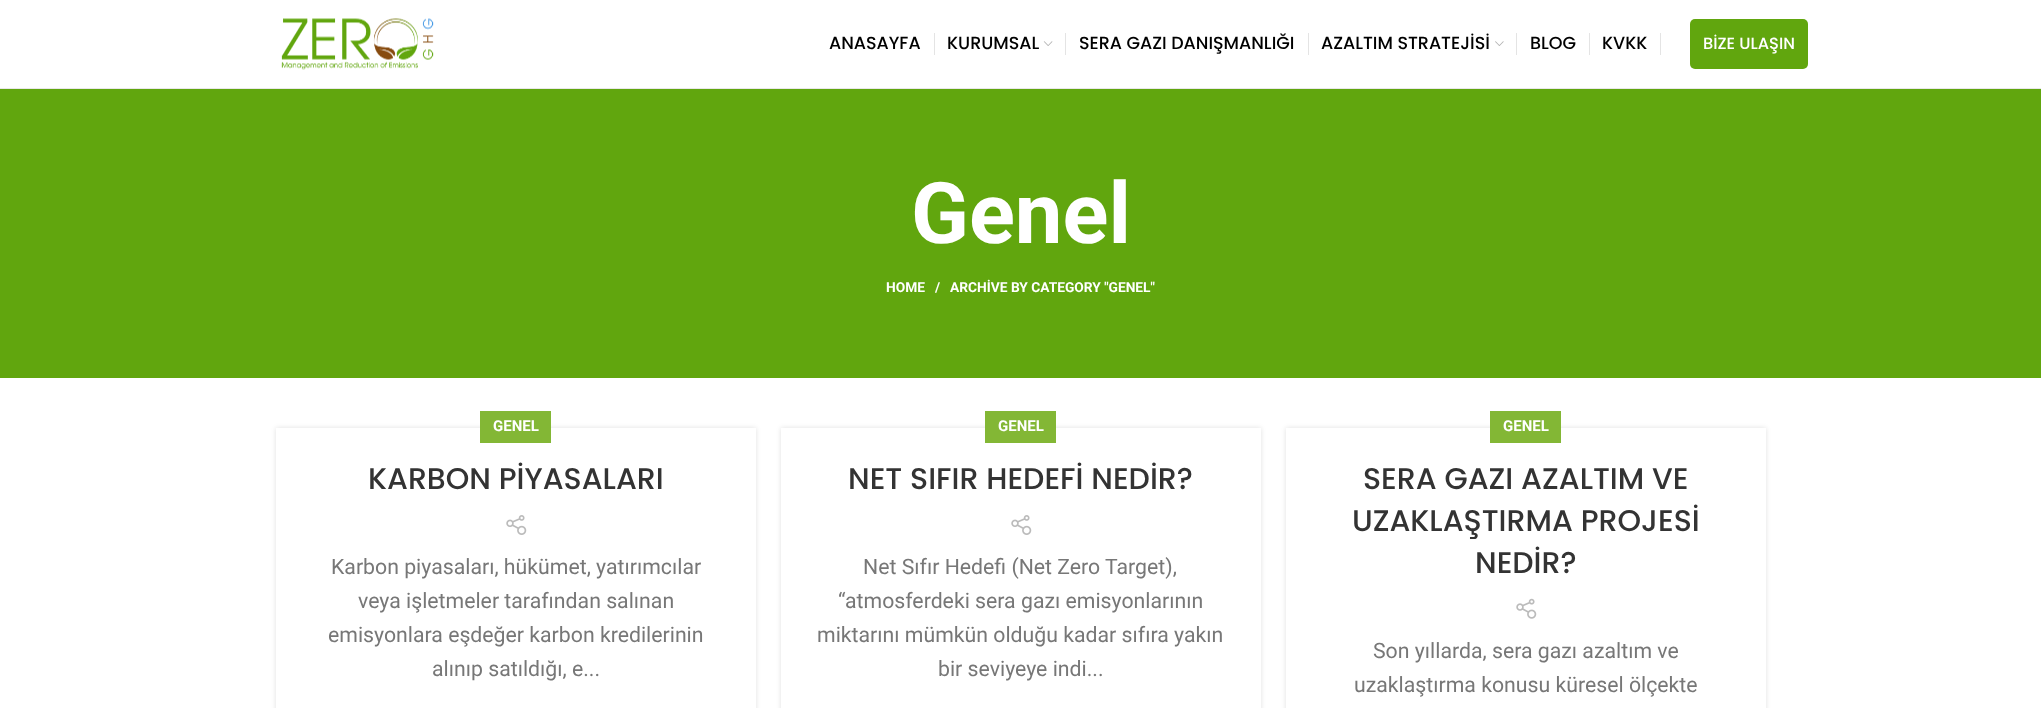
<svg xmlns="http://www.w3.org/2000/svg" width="2041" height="708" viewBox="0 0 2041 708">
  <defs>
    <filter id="blur1" x="-50%" y="-200%" width="200%" height="500%"><feGaussianBlur stdDeviation="2.5"/></filter>
  </defs>
  <rect width="100%" height="100%" fill="#ffffff"/>
  <rect x="0" y="88" width="2041" height="1" fill="#e8e8e8"/>
  <image x="281" y="18" width="153" height="52" href="img1.png"/>
  <text x="829" y="49" font-family="Poppins" font-size="17.5" font-weight="500" fill="#000000">ANASAYFA</text>
  <rect x="934" y="33" width="1" height="22" fill="#e4e4e4"/>
  <text x="947" y="49" font-family="Poppins" font-size="17.5" font-weight="500" fill="#000000">KURUMSAL</text>
  <image x="1043" y="41" width="10" height="5" href="img2.png"/>
  <rect x="1065" y="33" width="1" height="22" fill="#e4e4e4"/>
  <text x="1079" y="49" font-family="Poppins" font-size="17.5" font-weight="500" fill="#000000">SERA GAZI DANIŞMANLIĞI</text>
  <rect x="1308" y="33" width="1" height="22" fill="#e4e4e4"/>
  <text x="1321" y="49" font-family="Poppins" font-size="17.5" font-weight="500" fill="#000000">AZALTIM STRATEJİSİ</text>
  <image x="1495" y="41" width="9" height="5" href="img3.png"/>
  <rect x="1516" y="33" width="1" height="22" fill="#e4e4e4"/>
  <text x="1530" y="49" font-family="Poppins" font-size="17.5" font-weight="500" fill="#000000">BLOG</text>
  <rect x="1589" y="33" width="1" height="22" fill="#e4e4e4"/>
  <text x="1602" y="49" font-family="Poppins" font-size="17.5" font-weight="500" fill="#000000">KVKK</text>
  <rect x="1660" y="33" width="1" height="22" fill="#e4e4e4"/>
  <rect x="1690" y="19" width="118" height="50" rx="5" fill="#61a60e"/>
  <text x="1703" y="49" font-family="Poppins" font-size="16.25" font-weight="500" fill="#ffffff">BİZE ULAŞIN</text>
  <rect x="0" y="89" width="2041" height="289" fill="#61a60e"/>
  <text x="911" y="243" font-family="Roboto" font-size="85" font-weight="bold" fill="#ffffff">Genel</text>
  <text x="886" y="292" font-family="Roboto" font-size="13.75" font-weight="bold" fill="#ffffff">HOME</text>
  <text x="935" y="292" font-family="Roboto" font-size="13.75" font-weight="bold" fill="#ffffff">/</text>
  <text x="950" y="292" font-family="Roboto" font-size="13.75" font-weight="bold" fill="#ffffff">ARCHİVE BY CATEGORY "GENEL"</text>
  <rect x="276" y="428" width="480" height="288" fill="#000000" fill-opacity="0.12" filter="url(#blur1)"/>
  <rect x="276" y="428" width="480" height="280" fill="#ffffff"/>
  <rect x="480" y="411" width="71" height="32" fill="#83b735"/>
  <text x="493" y="431" font-family="Roboto" font-size="15" font-weight="bold" fill="#ffffff">GENEL</text>
  <text x="368" y="489" font-family="Poppins" font-size="30" font-weight="500" fill="#333333">KARBON PİYASALARI</text>
  <image x="506" y="515" width="21" height="20" href="img4.png"/>
  <text x="331" y="574" font-family="Roboto" font-size="21.25" fill="#777777">Karbon piyasaları, hükümet, yatırımcılar</text>
  <text x="358" y="608" font-family="Roboto" font-size="21.25" fill="#777777">veya işletmeler tarafından salınan</text>
  <text x="328" y="642" font-family="Roboto" font-size="21.25" fill="#777777">emisyonlara eşdeğer karbon kredilerinin</text>
  <text x="432" y="676" font-family="Roboto" font-size="21.25" fill="#777777">alınıp satıldığı, e...</text>
  <rect x="781" y="428" width="480" height="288" fill="#000000" fill-opacity="0.12" filter="url(#blur1)"/>
  <rect x="781" y="428" width="480" height="280" fill="#ffffff"/>
  <rect x="985" y="411" width="71" height="32" fill="#83b735"/>
  <text x="998" y="431" font-family="Roboto" font-size="15" font-weight="bold" fill="#ffffff">GENEL</text>
  <text x="848" y="489" font-family="Poppins" font-size="30" font-weight="500" fill="#333333">NET SIFIR HEDEFİ NEDİR?</text>
  <image x="1011" y="515" width="21" height="20" href="img4.png"/>
  <text x="863" y="574" font-family="Roboto" font-size="21.25" fill="#777777">Net Sıfır Hedefi (Net Zero Target),</text>
  <text x="838" y="608" font-family="Roboto" font-size="21.25" fill="#777777">“atmosferdeki sera gazı emisyonlarının</text>
  <text x="817" y="642" font-family="Roboto" font-size="21.25" fill="#777777">miktarını mümkün olduğu kadar sıfıra yakın</text>
  <text x="938" y="676" font-family="Roboto" font-size="21.25" fill="#777777">bir seviyeye indi...</text>
  <rect x="1286" y="428" width="480" height="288" fill="#000000" fill-opacity="0.12" filter="url(#blur1)"/>
  <rect x="1286" y="428" width="480" height="280" fill="#ffffff"/>
  <rect x="1490" y="411" width="71" height="32" fill="#83b735"/>
  <text x="1503" y="431" font-family="Roboto" font-size="15" font-weight="bold" fill="#ffffff">GENEL</text>
  <text x="1363" y="489" font-family="Poppins" font-size="30" font-weight="500" fill="#333333">SERA GAZI AZALTIM VE</text>
  <text x="1352" y="531" font-family="Poppins" font-size="30" font-weight="500" fill="#333333">UZAKLAŞTIRMA PROJESİ</text>
  <text x="1475" y="573" font-family="Poppins" font-size="30" font-weight="500" fill="#333333">NEDİR?</text>
  <image x="1516" y="598" width="21" height="21" href="img5.png"/>
  <text x="1373" y="658" font-family="Roboto" font-size="21.25" fill="#777777">Son yıllarda, sera gazı azaltım ve</text>
  <text x="1354" y="692" font-family="Roboto" font-size="21.25" fill="#777777">uzaklaştırma konusu küresel ölçekte</text>
</svg>
